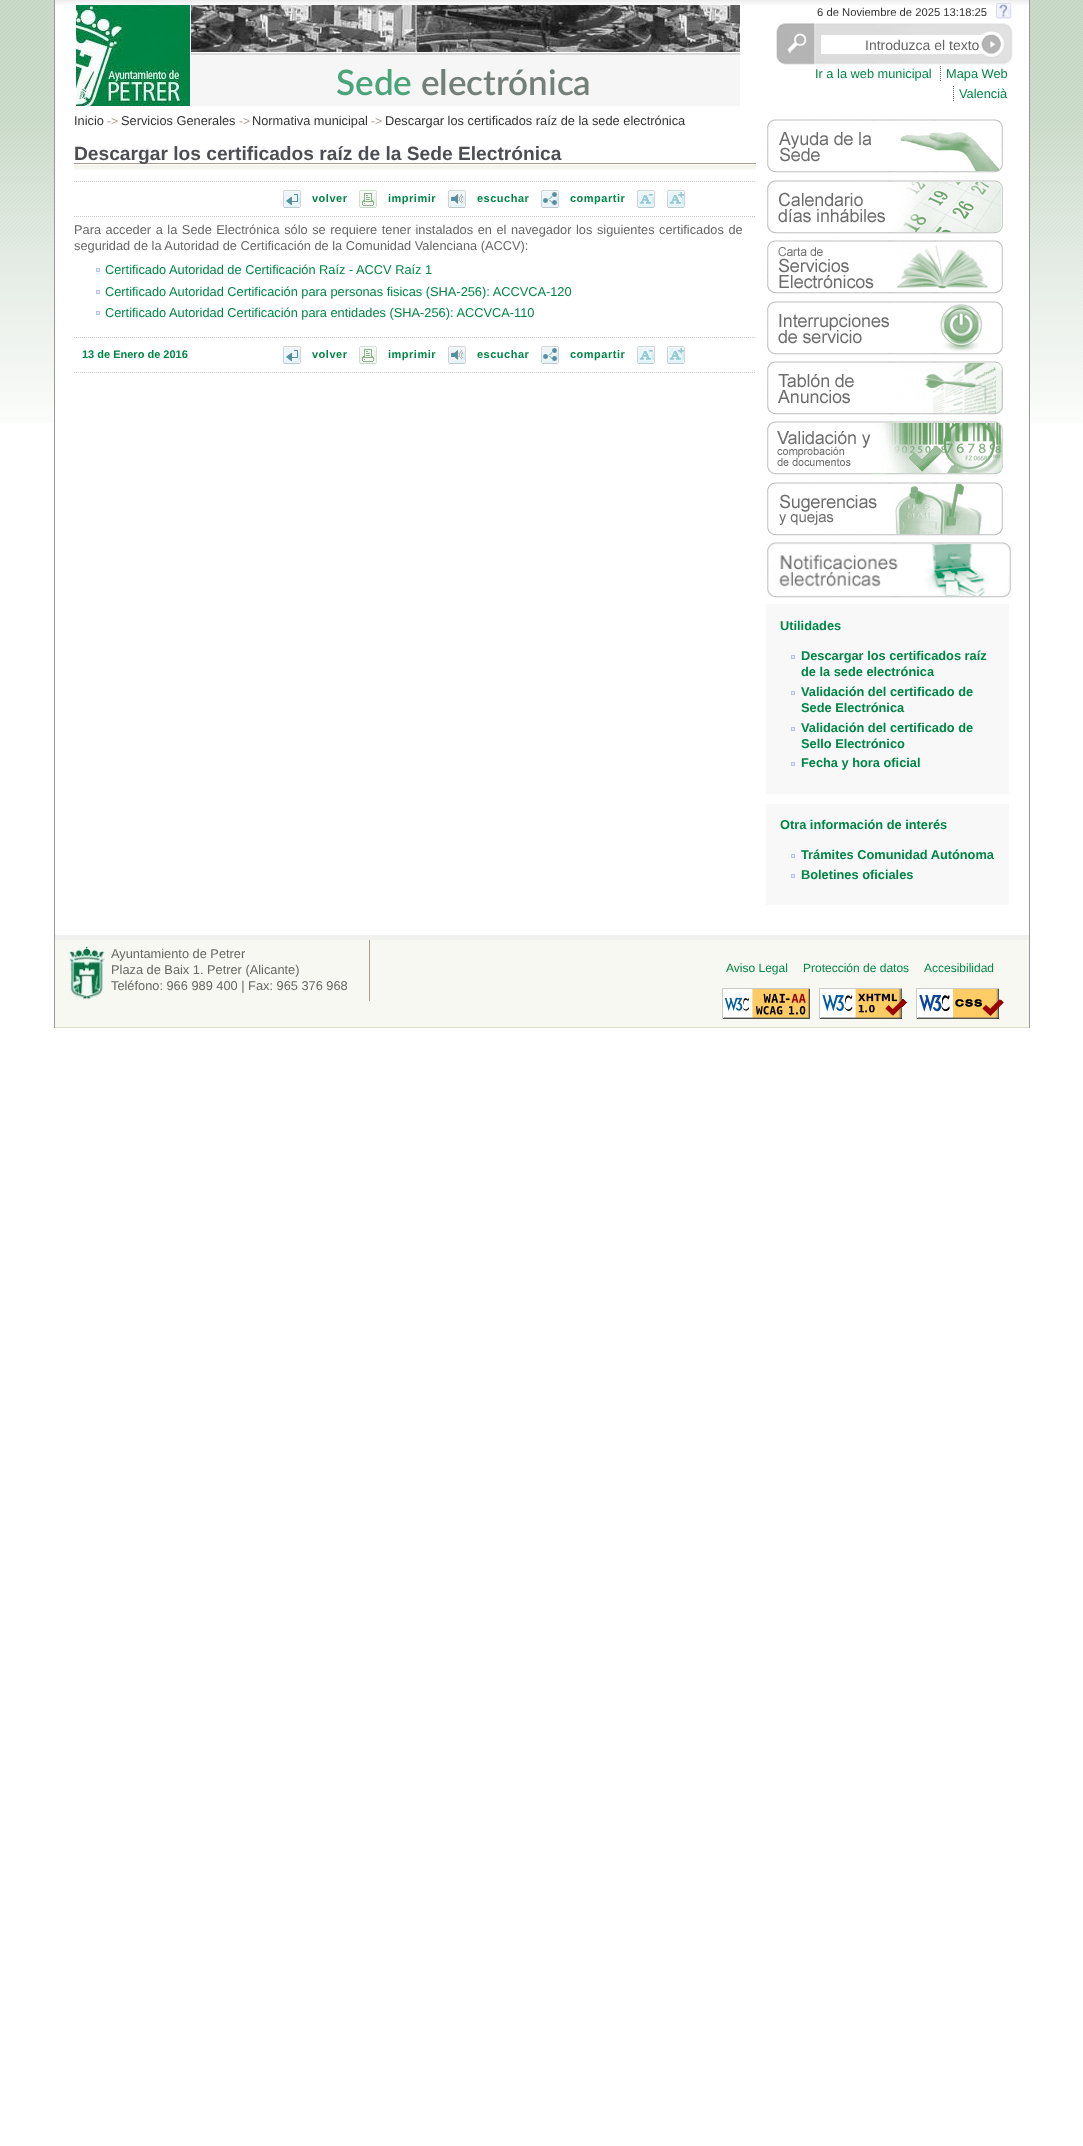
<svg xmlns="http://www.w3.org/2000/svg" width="1083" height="2146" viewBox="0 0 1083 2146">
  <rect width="100%" height="100%" fill="#ffffff"/>
  <image x="0" y="0" width="1083" height="423" href="img1.png"/>
  <rect x="55" y="5" width="974" height="418" fill="#ffffff"/>
  <image x="55" y="0" width="974" height="5" href="img2.png"/>
  <rect x="1029" y="0" width="1" height="1028" fill="#999999"/>
  <rect x="54" y="0" width="1" height="1028" fill="#999999"/>
  <image x="76" y="5" width="664" height="101" href="img3.png"/>
  <text x="817" y="16" font-family="Liberation Sans" font-size="11.25" fill="#333333">6 de Noviembre de 2025 13:18:25</text>
  <image x="995" y="3" width="17" height="16" href="img4.png"/>
  <image x="776" y="23" width="237" height="42" href="img5.png"/>
  <rect x="821" y="35" width="160" height="19" fill="#ffffff"/>
  <text x="865" y="50" font-family="Liberation Sans" font-size="14" fill="#666666">Introduzca el texto</text>
  <text x="815" y="78" font-family="Liberation Sans" font-size="12.8" fill="#008546">Ir a la web municipal</text>
  <text x="946" y="78" font-family="Liberation Sans" font-size="12.8" fill="#008546">Mapa Web</text>
  <path d="M940.5 66V81" fill="none" stroke="#666666" stroke-dasharray="1 1"/>
  <text x="959" y="98" font-family="Liberation Sans" font-size="12.8" fill="#008546">Valencià</text>
  <path d="M953.5 86V101" fill="none" stroke="#666666" stroke-dasharray="1 1"/>
  <text x="74" y="125" font-family="Liberation Sans" font-size="12.8" fill="#333333">Inicio</text>
  <text x="107" y="125" font-family="Liberation Sans" font-size="12" fill="#ab9c8f">-&gt;</text>
  <text x="121" y="125" font-family="Liberation Sans" font-size="12.8" fill="#333333">Servicios Generales</text>
  <text x="239" y="125" font-family="Liberation Sans" font-size="12" fill="#ab9c8f">-&gt;</text>
  <text x="252" y="125" font-family="Liberation Sans" font-size="12.8" fill="#333333">Normativa municipal</text>
  <text x="371" y="125" font-family="Liberation Sans" font-size="12" fill="#ab9c8f">-&gt;</text>
  <text x="385" y="125" font-family="Liberation Sans" font-size="12.8" fill="#333333">Descargar los certificados raíz de la sede electrónica</text>
  <image x="74" y="163" width="682" height="7" href="img6.png"/>
  <text x="74" y="160" font-family="Liberation Sans" font-size="19.2" font-weight="bold" fill="#4d4e53">Descargar los certificados raíz de la Sede Electrónica</text>
  <path d="M74 181.5H756" fill="none" stroke="#cccccc" stroke-dasharray="1 1"/>
  <path d="M74 216.5H756" fill="none" stroke="#cccccc" stroke-dasharray="1 1"/>
  <image x="282" y="190" width="20" height="18" href="img7.png"/>
  <text x="312" y="202" font-family="Liberation Sans" font-size="11" font-weight="bold" letter-spacing="0.5" fill="#008546">volver</text>
  <image x="358" y="190" width="20" height="18" href="img8.png"/>
  <text x="388" y="202" font-family="Liberation Sans" font-size="11" font-weight="bold" letter-spacing="0.5" fill="#008546">imprimir</text>
  <image x="447" y="190" width="20" height="18" href="img9.png"/>
  <text x="477" y="202" font-family="Liberation Sans" font-size="11" font-weight="bold" letter-spacing="0.5" fill="#008546">escuchar</text>
  <image x="541" y="190" width="19" height="18" href="img10.png"/>
  <text x="570" y="202" font-family="Liberation Sans" font-size="11" font-weight="bold" letter-spacing="0.5" fill="#008546">compartir</text>
  <image x="636" y="190" width="20" height="18" href="img11.png"/>
  <image x="666" y="190" width="20" height="18" href="img12.png"/>
  <text x="74" y="234" word-spacing="1" font-family="Liberation Sans" font-size="12.8" fill="#666666">Para acceder a la Sede Electrónica sólo se requiere tener instalados en el navegador los siguientes certificados de</text>
  <text x="74" y="250" font-family="Liberation Sans" font-size="12.8" fill="#666666">seguridad de la Autoridad de Certificación de la Comunidad Valenciana (ACCV):</text>
  <image x="96" y="268" width="4" height="4" href="img13.png"/>
  <text x="105" y="274" font-family="Liberation Sans" font-size="12.8" fill="#008546">Certificado Autoridad de Certificación Raíz - ACCV Raíz 1</text>
  <image x="96" y="290" width="4" height="4" href="img13.png"/>
  <text x="105" y="296" font-family="Liberation Sans" font-size="12.8" fill="#008546">Certificado Autoridad Certificación para personas fisicas (SHA-256): ACCVCA-120</text>
  <image x="96" y="311" width="4" height="4" href="img13.png"/>
  <text x="105" y="317" font-family="Liberation Sans" font-size="12.8" fill="#008546">Certificado Autoridad Certificación para entidades (SHA-256): ACCVCA-110</text>
  <path d="M74 337.5H756" fill="none" stroke="#cccccc" stroke-dasharray="1 1"/>
  <path d="M74 372.5H756" fill="none" stroke="#cccccc" stroke-dasharray="1 1"/>
  <text x="82" y="358" font-family="Liberation Sans" font-size="11" font-weight="bold" fill="#008546">13 de Enero de 2016</text>
  <image x="282" y="346" width="20" height="18" href="img7.png"/>
  <text x="312" y="358" font-family="Liberation Sans" font-size="11" font-weight="bold" letter-spacing="0.5" fill="#008546">volver</text>
  <image x="358" y="346" width="20" height="18" href="img8.png"/>
  <text x="388" y="358" font-family="Liberation Sans" font-size="11" font-weight="bold" letter-spacing="0.5" fill="#008546">imprimir</text>
  <image x="447" y="346" width="20" height="18" href="img9.png"/>
  <text x="477" y="358" font-family="Liberation Sans" font-size="11" font-weight="bold" letter-spacing="0.5" fill="#008546">escuchar</text>
  <image x="541" y="346" width="19" height="18" href="img10.png"/>
  <text x="570" y="358" font-family="Liberation Sans" font-size="11" font-weight="bold" letter-spacing="0.5" fill="#008546">compartir</text>
  <image x="636" y="346" width="20" height="18" href="img11.png"/>
  <image x="666" y="346" width="20" height="18" href="img12.png"/>
  <image x="767" y="119" width="236" height="54" href="img14.png"/>
  <image x="767" y="180" width="236" height="54" href="img15.png"/>
  <image x="767" y="240" width="236" height="54" href="img16.png"/>
  <image x="767" y="301" width="236" height="54" href="img17.png"/>
  <image x="767" y="361" width="236" height="54" href="img18.png"/>
  <image x="767" y="421" width="237" height="54" href="img19.png"/>
  <image x="767" y="482" width="236" height="54" href="img20.png"/>
  <image x="767" y="542" width="245" height="56" href="img21.png"/>
  <rect x="766" y="604" width="243" height="190" fill="#f8f8f8"/>
  <text x="780" y="630" font-family="Liberation Sans" font-size="12.8" font-weight="bold" fill="#008546">Utilidades</text>
  <image x="791" y="655" width="4" height="4" href="img13.png"/>
  <text x="801" y="660" font-family="Liberation Sans" font-size="12.8" font-weight="bold" fill="#008546">Descargar los certificados raíz</text>
  <text x="801" y="676" font-family="Liberation Sans" font-size="12.8" font-weight="bold" fill="#008546">de la sede electrónica</text>
  <image x="791" y="691" width="4" height="4" href="img13.png"/>
  <text x="801" y="696" font-family="Liberation Sans" font-size="12.8" font-weight="bold" fill="#008546">Validación del certificado de</text>
  <text x="801" y="712" font-family="Liberation Sans" font-size="12.8" font-weight="bold" fill="#008546">Sede Electrónica</text>
  <image x="791" y="727" width="4" height="4" href="img13.png"/>
  <text x="801" y="732" font-family="Liberation Sans" font-size="12.8" font-weight="bold" fill="#008546">Validación del certificado de</text>
  <text x="801" y="748" font-family="Liberation Sans" font-size="12.8" font-weight="bold" fill="#008546">Sello Electrónico</text>
  <image x="791" y="762" width="4" height="4" href="img13.png"/>
  <text x="801" y="767" font-family="Liberation Sans" font-size="12.8" font-weight="bold" fill="#008546">Fecha y hora oficial</text>
  <rect x="766" y="804" width="243" height="101" fill="#f8f8f8"/>
  <text x="780" y="829" font-family="Liberation Sans" font-size="12.8" font-weight="bold" fill="#008546">Otra información de interés</text>
  <image x="791" y="854" width="4" height="4" href="img13.png"/>
  <text x="801" y="859" font-family="Liberation Sans" font-size="12.8" font-weight="bold" fill="#008546">Trámites Comunidad Autónoma</text>
  <image x="791" y="874" width="4" height="4" href="img13.png"/>
  <text x="801" y="879" font-family="Liberation Sans" font-size="12.8" font-weight="bold" fill="#008546">Boletines oficiales</text>
  <rect x="55" y="940" width="974" height="87" fill="#f8f8f2"/>
  <rect x="55" y="935" width="974" height="5" fill="#f0f0ef"/>
  <rect x="55" y="1027" width="974" height="1" fill="#dfddcb"/>
  <image x="68" y="946" width="38" height="54" href="img22.png"/>
  <rect x="369" y="940" width="1" height="61" fill="#ab9c8f"/>
  <text x="111" y="958" font-family="Liberation Sans" font-size="12.8" fill="#666666">Ayuntamiento de Petrer</text>
  <text x="111" y="974" font-family="Liberation Sans" font-size="12.8" fill="#666666">Plaza de Baix 1. Petrer (Alicante)</text>
  <text x="111" y="990" font-family="Liberation Sans" font-size="12.8" fill="#666666">Teléfono: 966 989 400 | Fax: 965 376 968</text>
  <text x="726" y="972" font-family="Liberation Sans" font-size="12" fill="#008546">Aviso Legal</text>
  <text x="803" y="972" font-family="Liberation Sans" font-size="12" fill="#008546">Protección de datos</text>
  <text x="924" y="972" font-family="Liberation Sans" font-size="12" fill="#008546">Accesibilidad</text>
  <image x="722" y="988" width="88" height="31" href="img23.png"/>
  <image x="819" y="988" width="88" height="31" href="img24.png"/>
  <image x="916" y="988" width="88" height="31" href="img25.png"/>
</svg>
